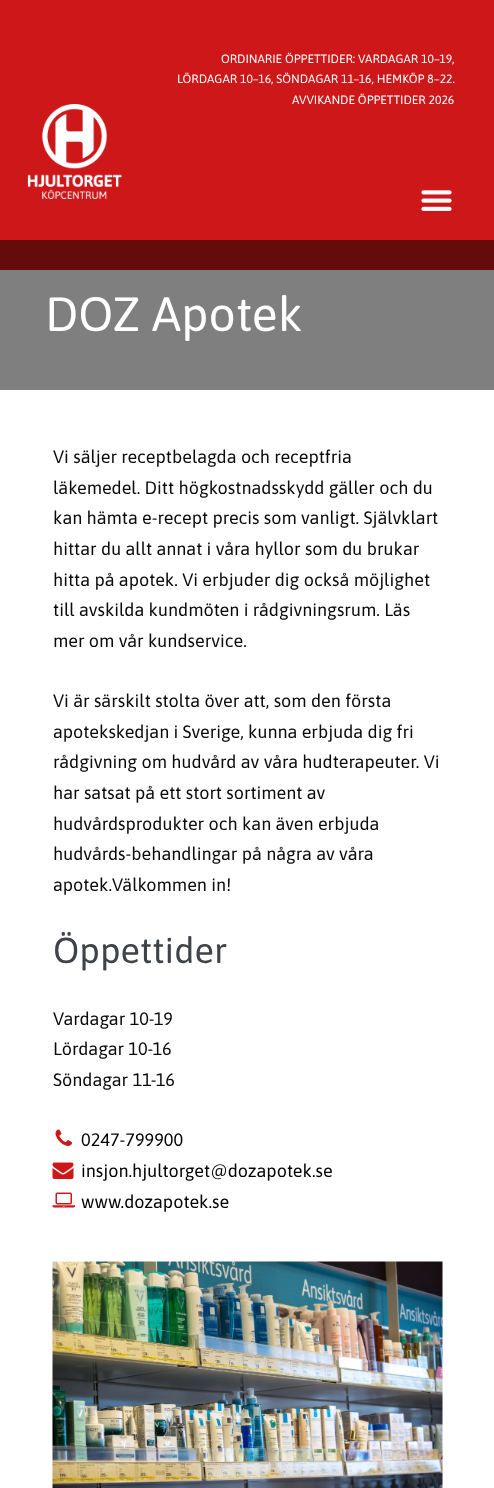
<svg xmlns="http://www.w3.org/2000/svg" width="494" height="1488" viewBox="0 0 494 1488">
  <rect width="100%" height="100%" fill="#ffffff"/>
  <rect x="0" y="0" width="494" height="270" fill="#cd1719"/>
  <text x="221" y="63" font-family="Asap" font-size="12" fill="#ffffff">ORDINARIE ÖPPETTIDER: VARDAGAR 10–19,</text>
  <text x="177" y="83" font-family="Asap" font-size="12" fill="#ffffff">LÖRDAGAR 10–16, SÖNDAGAR 11–16, HEMKÖP 8–22.</text>
  <text x="292" y="104" font-family="Asap" font-size="12" fill="#ffffff">AVVIKANDE ÖPPETTIDER 2026</text>
  <image x="421" y="190" width="31" height="21" href="img1.png"/>
  <image x="27" y="104" width="95" height="95" href="img2.png"/>
  <rect x="0" y="240" width="494" height="150" fill="#000000" fill-opacity="0.5"/>
  <text x="45" y="331" font-family="Asap" font-size="48" fill="#ffffff">DOZ Apotek</text>
  <text x="53" y="463" font-family="Asap" font-size="18" fill="#0a0a0a">Vi säljer receptbelagda och receptfria</text>
  <text x="53" y="494" font-family="Asap" font-size="18" fill="#0a0a0a">läkemedel. Ditt högkostnadsskydd gäller och du</text>
  <text x="53" y="524" font-family="Asap" font-size="18" fill="#0a0a0a">kan hämta e-recept precis som vanligt. Självklart</text>
  <text x="53" y="555" font-family="Asap" font-size="18" fill="#0a0a0a">hittar du allt annat i våra hyllor som du brukar</text>
  <text x="53" y="586" font-family="Asap" font-size="18" fill="#0a0a0a">hitta på apotek. Vi erbjuder dig också möjlighet</text>
  <text x="53" y="616" font-family="Asap" font-size="18" fill="#0a0a0a">till avskilda kundmöten i rådgivningsrum. Läs</text>
  <text x="53" y="647" font-family="Asap" font-size="18" fill="#0a0a0a">mer om vår kundservice.</text>
  <text x="53" y="707" font-family="Asap" font-size="18" fill="#0a0a0a">Vi är särskilt stolta över att, som den första</text>
  <text x="53" y="738" font-family="Asap" font-size="18" fill="#0a0a0a">apotekskedjan i Sverige, kunna erbjuda dig fri</text>
  <text x="53" y="768" font-family="Asap" font-size="18" fill="#0a0a0a">rådgivning om hudvård av våra hudterapeuter. Vi</text>
  <text x="53" y="799" font-family="Asap" font-size="18" fill="#0a0a0a">har satsat på ett stort sortiment av</text>
  <text x="53" y="830" font-family="Asap" font-size="18" fill="#0a0a0a">hudvårdsprodukter och kan även erbjuda</text>
  <text x="53" y="860" font-family="Asap" font-size="18" fill="#0a0a0a">hudvårds-behandlingar på några av våra</text>
  <text x="53" y="891" font-family="Asap" font-size="18" fill="#0a0a0a">apotek.Välkommen in!</text>
  <text x="53" y="963" font-family="Asap" font-size="36" fill="#3e4349">Öppettider</text>
  <text x="53" y="1025" font-family="Asap" font-size="18" fill="#0a0a0a">Vardagar 10-19</text>
  <text x="53" y="1055" font-family="Asap" font-size="18" fill="#0a0a0a">Lördagar 10-16</text>
  <text x="53" y="1086" font-family="Asap" font-size="18" fill="#0a0a0a">Söndagar 11-16</text>
  <image x="55" y="1129" width="17" height="17" href="img3.png"/>
  <text x="81" y="1146" font-family="Asap" font-size="18" fill="#000000">0247-799900</text>
  <image x="52" y="1162" width="22" height="17" href="img4.png"/>
  <text x="81" y="1177" font-family="Asap" font-size="18" fill="#000000">insjon.hjultorget@dozapotek.se</text>
  <image x="52" y="1192" width="23" height="16" href="img5.png"/>
  <text x="81" y="1208" font-family="Asap" font-size="18" fill="#000000">www.dozapotek.se</text>
  <image x="52" y="1261" width="391" height="227" href="img6.png"/>
</svg>
